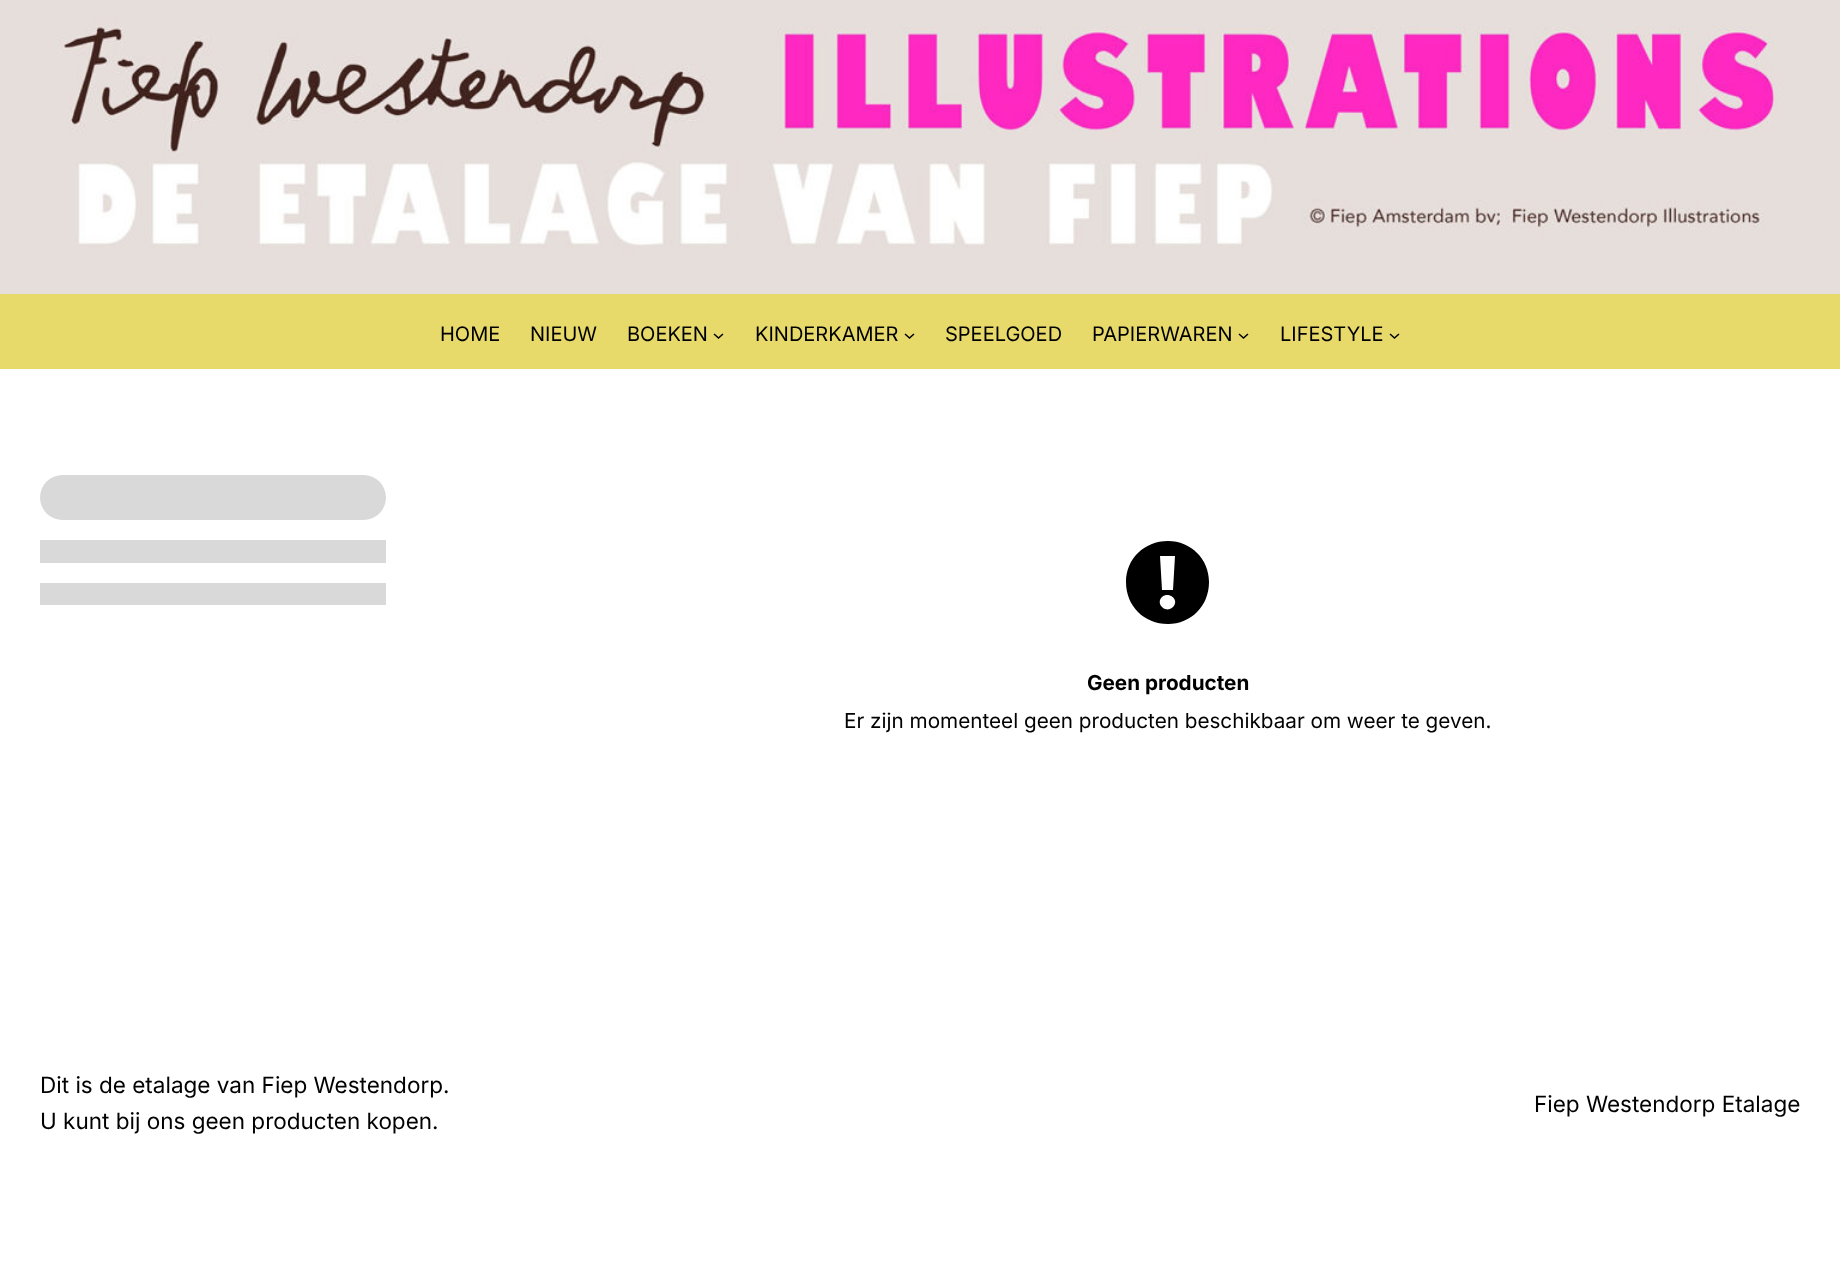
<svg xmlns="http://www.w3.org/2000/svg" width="1840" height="1288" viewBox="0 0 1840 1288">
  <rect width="100%" height="100%" fill="#ffffff"/>
  <image x="0" y="0" width="1840" height="294" href="img1.png"/>
  <rect x="0" y="294" width="1840" height="75" fill="#e7da6a"/>
  <text x="440" y="341" font-family="Inter" font-size="20" fill="#000000">HOME</text>
  <text x="530" y="341" font-family="Inter" font-size="20" fill="#000000">NIEUW</text>
  <text x="627" y="341" font-family="Inter" font-size="20" fill="#000000">BOEKEN</text>
  <path d="M714 334L718.5 338L723 334" fill="none" stroke="#000000" stroke-width="1.5"/>
  <text x="755" y="341" font-family="Inter" font-size="20" fill="#000000">KINDERKAMER</text>
  <path d="M905 334L909.5 338L914 334" fill="none" stroke="#000000" stroke-width="1.5"/>
  <text x="945" y="341" font-family="Inter" font-size="20" fill="#000000">SPEELGOED</text>
  <text x="1092" y="341" font-family="Inter" font-size="20" fill="#000000">PAPIERWAREN</text>
  <path d="M1239 334L1243.5 338L1248 334" fill="none" stroke="#000000" stroke-width="1.5"/>
  <text x="1280" y="341" font-family="Inter" font-size="20" fill="#000000">LIFESTYLE</text>
  <path d="M1390 334L1394.5 338L1399 334" fill="none" stroke="#000000" stroke-width="1.5"/>
  <rect x="40" y="475" width="346" height="45" rx="22.5" fill="#d9d9d9"/>
  <rect x="40" y="540" width="346" height="23" fill="#d9d9d9"/>
  <rect x="40" y="583" width="346" height="22" fill="#d9d9d9"/>
  <path d="M1168 541C1191 541 1209 559 1209 582C1209 606 1191 624 1168 624C1144 624 1126 606 1126 582C1126 559 1144 541 1168 541ZM1173 590L1175 556H1160L1162 590ZM1173 607C1180 600 1169 591 1162 597C1155 604 1166 614 1173 607Z" fill="#000000"/>
  <text x="1087" y="690" font-family="Inter" font-size="20.7" font-weight="bold" fill="#000000">Geen producten</text>
  <text x="844" y="728" font-family="Inter" font-size="20.7" fill="#000000">Er zijn momenteel geen producten beschikbaar om weer te geven.</text>
  <text x="40" y="1093" font-family="Inter" font-size="22.5" fill="#000000">Dit is de etalage van Fiep Westendorp.</text>
  <text x="40" y="1129" font-family="Inter" font-size="22.5" fill="#000000">U kunt bij ons geen producten kopen.</text>
  <text x="1534" y="1112" font-family="Inter" font-size="22.5" fill="#000000">Fiep Westendorp Etalage</text>
</svg>
